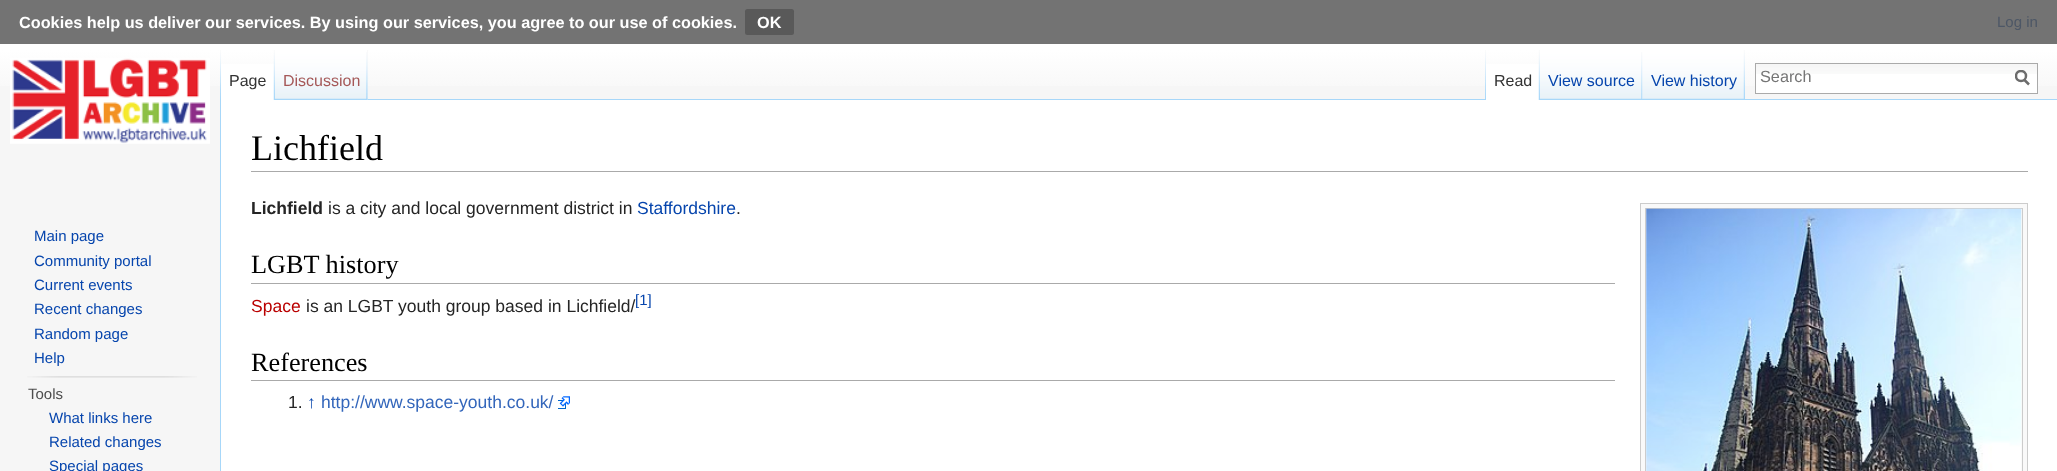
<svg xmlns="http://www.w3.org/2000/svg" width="2057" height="471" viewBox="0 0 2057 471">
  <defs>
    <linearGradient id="g1" gradientUnits="userSpaceOnUse" x1="1029" y1="0" x2="1029" y2="100"><stop offset="0.5" stop-color="#ffffff"/><stop offset="1" stop-color="#f6f6f6"/></linearGradient>
    <linearGradient id="g2" gradientUnits="userSpaceOnUse" x1="1029" y1="0" x2="1029" y2="100"><stop offset="0.5" stop-color="#737373"/><stop offset="1" stop-color="#717171"/></linearGradient>
    <clipPath id="clip1"><rect x="2015" y="70" width="15" height="16"/></clipPath>
  </defs>
  <rect width="100%" height="100%" fill="#f6f6f6"/>
  <rect x="0" y="44" width="2057" height="42" fill="url(#g1)"/>
  <rect x="0" y="0" width="2057" height="44" fill="url(#g2)"/>
  <text x="19" y="28" font-family="Liberation Sans" font-size="16.25" font-weight="bold" fill="#ffffff">Cookies help us deliver our services. By using our services, you agree to our use of cookies.</text>
  <rect x="745" y="9" width="49" height="26" rx="2.5" fill="#595959"/>
  <text x="757" y="28" font-family="Liberation Sans" font-size="16.25" font-weight="bold" fill="#ffffff">OK</text>
  <text x="1997" y="27" font-family="Liberation Sans" font-size="15" fill="#4d5766">Log in</text>
  <image x="220" y="50" width="1" height="49" href="img1.png"/>
  <rect x="221" y="64" width="53" height="36" fill="#ffffff"/>
  <image x="273" y="50" width="2" height="50" href="img2.png"/>
  <text x="229" y="86" font-family="Liberation Sans" font-size="16" fill="#333333">Page</text>
  <rect x="367" y="50" width="1" height="50" fill="#f3f3f3"/>
  <image x="275" y="50" width="93" height="50" href="img3.png"/>
  <image x="366" y="52" width="2" height="48" href="img4.png"/>
  <text x="283" y="86" font-family="Liberation Sans" font-size="16" fill="#a55858">Discussion</text>
  <image x="1485" y="50" width="1" height="49" href="img1.png"/>
  <rect x="368" y="99" width="1689" height="1" fill="#a7d7f9"/>
  <rect x="1486" y="64" width="53" height="36" fill="#ffffff"/>
  <image x="1538" y="50" width="2" height="50" href="img2.png"/>
  <text x="1494" y="86" font-family="Liberation Sans" font-size="16" fill="#333333">Read</text>
  <image x="1540" y="50" width="103" height="50" href="img5.png"/>
  <image x="1641" y="52" width="2" height="48" href="img4.png"/>
  <text x="1548" y="86" font-family="Liberation Sans" font-size="16" fill="#0645ad">View source</text>
  <image x="1642" y="50" width="103" height="50" href="img6.png"/>
  <image x="1743" y="50" width="2" height="49" href="img7.png"/>
  <text x="1651" y="86" font-family="Liberation Sans" font-size="16" fill="#0645ad">View history</text>
  <rect x="1756" y="74" width="281" height="19" fill="#ffffff"/>
  <image x="1756" y="64" width="281" height="10" href="img8.png"/>
  <rect x="1755.5" y="63.5" width="282" height="30" fill="none" stroke="#aaaaaa"/>
  <text x="1760" y="82" font-family="Liberation Sans" font-size="16.25" fill="#757575">Search</text>
  <path d="M2029 84.5L2024 79.5" fill="none" stroke="#6c6c6c" stroke-width="2.5"/>
  <g clip-path="url(#clip1)">
    <circle cx="2021" cy="76" r="5" fill="none" stroke="#6c6c6c" stroke-width="2.5"/>
  </g>
  <image x="10" y="58" width="200" height="86" href="img9.png"/>
  <text x="34" y="241" font-family="Liberation Sans" font-size="15" fill="#0645ad">Main page</text>
  <text x="34" y="266" font-family="Liberation Sans" font-size="15" fill="#0645ad">Community portal</text>
  <text x="34" y="290" font-family="Liberation Sans" font-size="15" fill="#0645ad">Current events</text>
  <text x="34" y="314" font-family="Liberation Sans" font-size="15" fill="#0645ad">Recent changes</text>
  <text x="34" y="339" font-family="Liberation Sans" font-size="15" fill="#0645ad">Random page</text>
  <text x="34" y="363" font-family="Liberation Sans" font-size="15" fill="#0645ad">Help</text>
  <image x="27" y="376" width="170" height="2" href="img10.png"/>
  <text x="28" y="399" font-family="Liberation Sans" font-size="15" fill="#4d4d4d">Tools</text>
  <text x="49" y="423" font-family="Liberation Sans" font-size="15" fill="#0645ad">What links here</text>
  <text x="49" y="447" font-family="Liberation Sans" font-size="15" fill="#0645ad">Related changes</text>
  <text x="49" y="471" font-family="Liberation Sans" font-size="15" fill="#0645ad">Special pages</text>
  <rect x="221" y="100" width="1836" height="371" fill="#ffffff"/>
  <rect x="220" y="99" width="1" height="372" fill="#a7d7f9"/>
  <rect x="251" y="171" width="1777" height="1" fill="#aaaaaa"/>
  <text x="251" y="160" font-family="Liberation Serif" font-size="36" fill="#000000">Lichfield</text>
  <text x="251" y="214" font-family="Liberation Sans" font-size="17.5" font-weight="bold" fill="#252525">Lichfield</text>
  <text x="328" y="214" font-family="Liberation Sans" font-size="17.5" fill="#252525">is a city and local government district in</text>
  <text x="637" y="214" font-family="Liberation Sans" font-size="17.5" fill="#0645ad">Staffordshire</text>
  <text x="736" y="214" font-family="Liberation Sans" font-size="17.5" fill="#252525">.</text>
  <rect x="1640.5" y="203.5" width="387" height="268" fill="#f9f9f9" stroke="#cccccc"/>
  <rect x="1645.5" y="208.5" width="377" height="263" fill="none" stroke="#cccccc"/>
  <image x="1646" y="208" width="376" height="263" href="img11.png"/>
  <rect x="251" y="283" width="1364" height="1" fill="#aaaaaa"/>
  <text x="251" y="273" font-family="Liberation Serif" font-size="26.25" fill="#000000">LGBT history</text>
  <text x="251" y="312" font-family="Liberation Sans" font-size="17.5" fill="#ba0000">Space</text>
  <text x="306" y="312" font-family="Liberation Sans" font-size="17.5" fill="#252525">is an LGBT youth group based in Lichfield/</text>
  <text x="635" y="305" font-family="Liberation Sans" font-size="15" fill="#0645ad">[1]</text>
  <rect x="251" y="380" width="1364" height="1" fill="#aaaaaa"/>
  <text x="251" y="371" font-family="Liberation Serif" font-size="26.25" fill="#000000">References</text>
  <text x="288" y="408" font-family="Liberation Sans" font-size="17.5" fill="#252525">1.</text>
  <text x="307" y="408" font-family="Liberation Sans" font-size="17.5" fill="#0645ad">↑</text>
  <text x="321" y="408" font-family="Liberation Sans" font-size="17.5" fill="#3366bb">http://www.space-youth.co.uk/</text>
  <image x="558" y="396" width="12" height="13" href="img12.png"/>
</svg>
